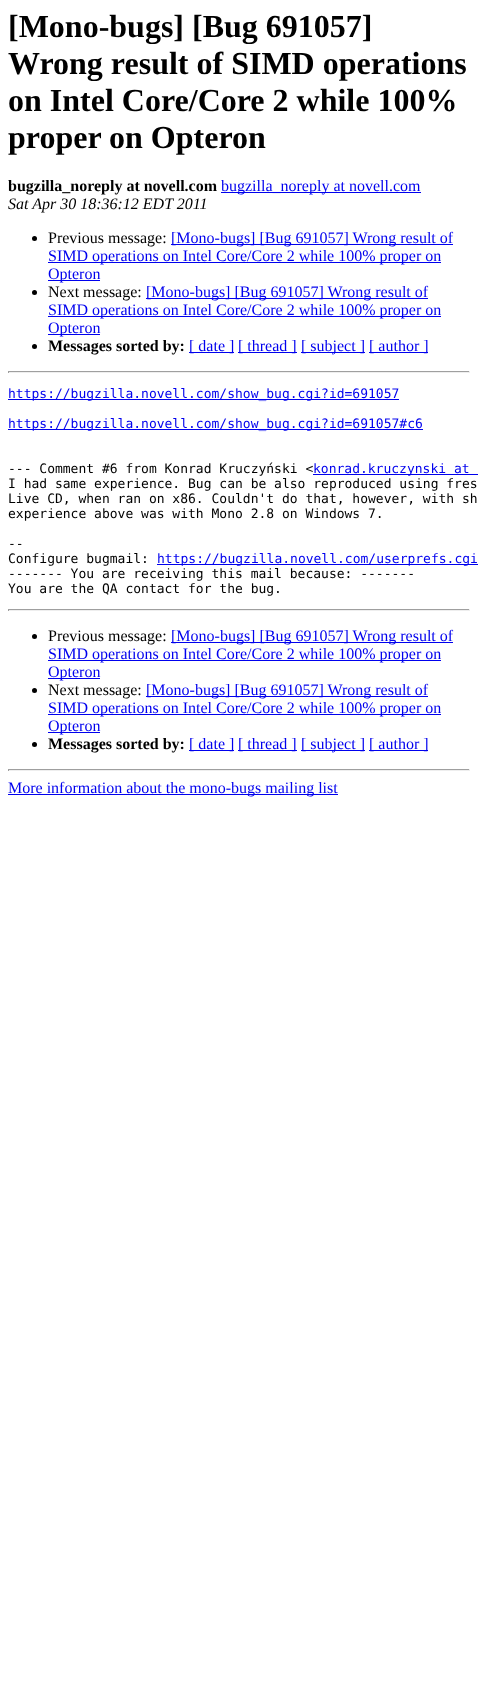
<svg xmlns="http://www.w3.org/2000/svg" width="478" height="1692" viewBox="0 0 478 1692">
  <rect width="100%" height="100%" fill="#ffffff"/>
  <text x="8" y="37" font-family="Liberation Serif" font-size="32" font-weight="bold" fill="#000000">[Mono-bugs] [Bug 691057]</text>
  <text x="8" y="74" font-family="Liberation Serif" font-size="32" font-weight="bold" fill="#000000">Wrong result of SIMD operations</text>
  <text x="8" y="111" font-family="Liberation Serif" font-size="32" font-weight="bold" fill="#000000">on Intel Core/Core 2 while 100%</text>
  <text x="8" y="148" font-family="Liberation Serif" font-size="32" font-weight="bold" fill="#000000">proper on Opteron</text>
  <text x="8" y="191" font-family="Liberation Serif" font-size="16" font-weight="bold" fill="#000000">bugzilla_noreply at novell.com</text>
  <rect x="221" y="192" width="200" height="1" fill="#0000ee"/>
  <text x="221" y="191" font-family="Liberation Serif" font-size="16" fill="#0000ee">bugzilla_noreply at novell.com</text>
  <text x="8" y="209" font-family="Liberation Serif" font-size="16" font-style="italic" fill="#000000">Sat Apr 30 18:36:12 EDT 2011</text>
  <circle cx="34.5" cy="238.5" r="2.5" fill="#000000"/>
  <text x="48" y="243" font-family="Liberation Serif" font-size="16" fill="#000000">Previous message:</text>
  <rect x="171" y="244" width="282" height="1" fill="#0000ee"/>
  <text x="171" y="243" font-family="Liberation Serif" font-size="16" fill="#0000ee">[Mono-bugs] [Bug 691057] Wrong result of</text>
  <rect x="48" y="262" width="393" height="1" fill="#0000ee"/>
  <text x="48" y="261" font-family="Liberation Serif" font-size="16" fill="#0000ee">SIMD operations on Intel Core/Core 2 while 100% proper on</text>
  <rect x="48" y="280" width="52" height="1" fill="#0000ee"/>
  <text x="48" y="279" font-family="Liberation Serif" font-size="16" fill="#0000ee">Opteron</text>
  <circle cx="34.5" cy="292.5" r="2.5" fill="#000000"/>
  <text x="48" y="297" font-family="Liberation Serif" font-size="16" fill="#000000">Next message:</text>
  <rect x="146" y="298" width="282" height="1" fill="#0000ee"/>
  <text x="146" y="297" font-family="Liberation Serif" font-size="16" fill="#0000ee">[Mono-bugs] [Bug 691057] Wrong result of</text>
  <rect x="48" y="316" width="393" height="1" fill="#0000ee"/>
  <text x="48" y="315" font-family="Liberation Serif" font-size="16" fill="#0000ee">SIMD operations on Intel Core/Core 2 while 100% proper on</text>
  <rect x="48" y="334" width="52" height="1" fill="#0000ee"/>
  <text x="48" y="333" font-family="Liberation Serif" font-size="16" fill="#0000ee">Opteron</text>
  <circle cx="34.5" cy="346.5" r="2.5" fill="#000000"/>
  <text x="48" y="351" font-family="Liberation Serif" font-size="16" font-weight="bold" fill="#000000">Messages sorted by:</text>
  <rect x="189" y="352" width="45" height="1" fill="#0000ee"/>
  <text x="189" y="351" font-family="Liberation Serif" font-size="16" fill="#0000ee">[ date ]</text>
  <rect x="238" y="352" width="59" height="1" fill="#0000ee"/>
  <text x="238" y="351" font-family="Liberation Serif" font-size="16" fill="#0000ee">[ thread ]</text>
  <rect x="301" y="352" width="64" height="1" fill="#0000ee"/>
  <text x="301" y="351" font-family="Liberation Serif" font-size="16" fill="#0000ee">[ subject ]</text>
  <rect x="369" y="352" width="59" height="1" fill="#0000ee"/>
  <text x="369" y="351" font-family="Liberation Serif" font-size="16" fill="#0000ee">[ author ]</text>
  <rect x="8" y="371" width="462" height="1" fill="#9f9f9f"/>
  <rect x="469" y="371" width="1" height="2" fill="#eeeeee"/>
  <rect x="8" y="372" width="462" height="1" fill="#eeeeee"/>
  <rect x="8" y="371" width="1" height="2" fill="#9f9f9f"/>
  <rect x="8" y="399" width="391" height="1" fill="#0000ee"/>
  <text x="8" y="398" font-family="DejaVu Sans Mono" font-size="13" fill="#0000ee">https://bugzilla.novell.com/show_bug.cgi?id=691057</text>
  <rect x="8" y="429" width="415" height="1" fill="#0000ee"/>
  <text x="8" y="428" font-family="DejaVu Sans Mono" font-size="13" fill="#0000ee">https://bugzilla.novell.com/show_bug.cgi?id=691057#c6</text>
  <text x="8" y="473" font-family="DejaVu Sans Mono" font-size="13" fill="#000000">--- Comment #6 from Konrad Kruczyński &lt;</text>
  <rect x="313" y="474" width="165" height="1" fill="#0000ee"/>
  <text x="313" y="473" font-family="DejaVu Sans Mono" font-size="13" fill="#0000ee">konrad.kruczynski at</text>
  <text x="8" y="488" font-family="DejaVu Sans Mono" font-size="13" fill="#000000">I had same experience. Bug can be also reproduced using fres</text>
  <text x="8" y="503" font-family="DejaVu Sans Mono" font-size="13" fill="#000000">Live CD, when ran on x86. Couldn't do that, however, with sh</text>
  <text x="8" y="518" font-family="DejaVu Sans Mono" font-size="13" fill="#000000">experience above was with Mono 2.8 on Windows 7.</text>
  <text x="8" y="548" font-family="DejaVu Sans Mono" font-size="13" fill="#000000">--</text>
  <text x="8" y="563" font-family="DejaVu Sans Mono" font-size="13" fill="#000000">Configure bugmail:</text>
  <rect x="157" y="564" width="321" height="1" fill="#0000ee"/>
  <text x="157" y="563" font-family="DejaVu Sans Mono" font-size="13" fill="#0000ee">https://bugzilla.novell.com/userprefs.cgi</text>
  <text x="8" y="578" font-family="DejaVu Sans Mono" font-size="13" fill="#000000">------- You are receiving this mail because: -------</text>
  <text x="8" y="593" font-family="DejaVu Sans Mono" font-size="13" fill="#000000">You are the QA contact for the bug.</text>
  <rect x="8" y="609" width="462" height="1" fill="#9f9f9f"/>
  <rect x="469" y="609" width="1" height="2" fill="#eeeeee"/>
  <rect x="8" y="610" width="462" height="1" fill="#eeeeee"/>
  <rect x="8" y="609" width="1" height="2" fill="#9f9f9f"/>
  <circle cx="34.5" cy="636.5" r="2.5" fill="#000000"/>
  <text x="48" y="641" font-family="Liberation Serif" font-size="16" fill="#000000">Previous message:</text>
  <rect x="171" y="642" width="282" height="1" fill="#0000ee"/>
  <text x="171" y="641" font-family="Liberation Serif" font-size="16" fill="#0000ee">[Mono-bugs] [Bug 691057] Wrong result of</text>
  <rect x="48" y="660" width="393" height="1" fill="#0000ee"/>
  <text x="48" y="659" font-family="Liberation Serif" font-size="16" fill="#0000ee">SIMD operations on Intel Core/Core 2 while 100% proper on</text>
  <rect x="48" y="678" width="52" height="1" fill="#0000ee"/>
  <text x="48" y="677" font-family="Liberation Serif" font-size="16" fill="#0000ee">Opteron</text>
  <circle cx="34.5" cy="690.5" r="2.5" fill="#000000"/>
  <text x="48" y="695" font-family="Liberation Serif" font-size="16" fill="#000000">Next message:</text>
  <rect x="146" y="696" width="282" height="1" fill="#0000ee"/>
  <text x="146" y="695" font-family="Liberation Serif" font-size="16" fill="#0000ee">[Mono-bugs] [Bug 691057] Wrong result of</text>
  <rect x="48" y="714" width="393" height="1" fill="#0000ee"/>
  <text x="48" y="713" font-family="Liberation Serif" font-size="16" fill="#0000ee">SIMD operations on Intel Core/Core 2 while 100% proper on</text>
  <rect x="48" y="732" width="52" height="1" fill="#0000ee"/>
  <text x="48" y="731" font-family="Liberation Serif" font-size="16" fill="#0000ee">Opteron</text>
  <circle cx="34.5" cy="744.5" r="2.5" fill="#000000"/>
  <text x="48" y="749" font-family="Liberation Serif" font-size="16" font-weight="bold" fill="#000000">Messages sorted by:</text>
  <rect x="189" y="750" width="45" height="1" fill="#0000ee"/>
  <text x="189" y="749" font-family="Liberation Serif" font-size="16" fill="#0000ee">[ date ]</text>
  <rect x="238" y="750" width="59" height="1" fill="#0000ee"/>
  <text x="238" y="749" font-family="Liberation Serif" font-size="16" fill="#0000ee">[ thread ]</text>
  <rect x="301" y="750" width="64" height="1" fill="#0000ee"/>
  <text x="301" y="749" font-family="Liberation Serif" font-size="16" fill="#0000ee">[ subject ]</text>
  <rect x="369" y="750" width="59" height="1" fill="#0000ee"/>
  <text x="369" y="749" font-family="Liberation Serif" font-size="16" fill="#0000ee">[ author ]</text>
  <rect x="8" y="769" width="462" height="1" fill="#9f9f9f"/>
  <rect x="469" y="769" width="1" height="2" fill="#eeeeee"/>
  <rect x="8" y="770" width="462" height="1" fill="#eeeeee"/>
  <rect x="8" y="769" width="1" height="2" fill="#9f9f9f"/>
  <rect x="8" y="794" width="330" height="1" fill="#0000ee"/>
  <text x="8" y="793" font-family="Liberation Serif" font-size="16" fill="#0000ee">More information about the mono-bugs mailing list</text>
</svg>
